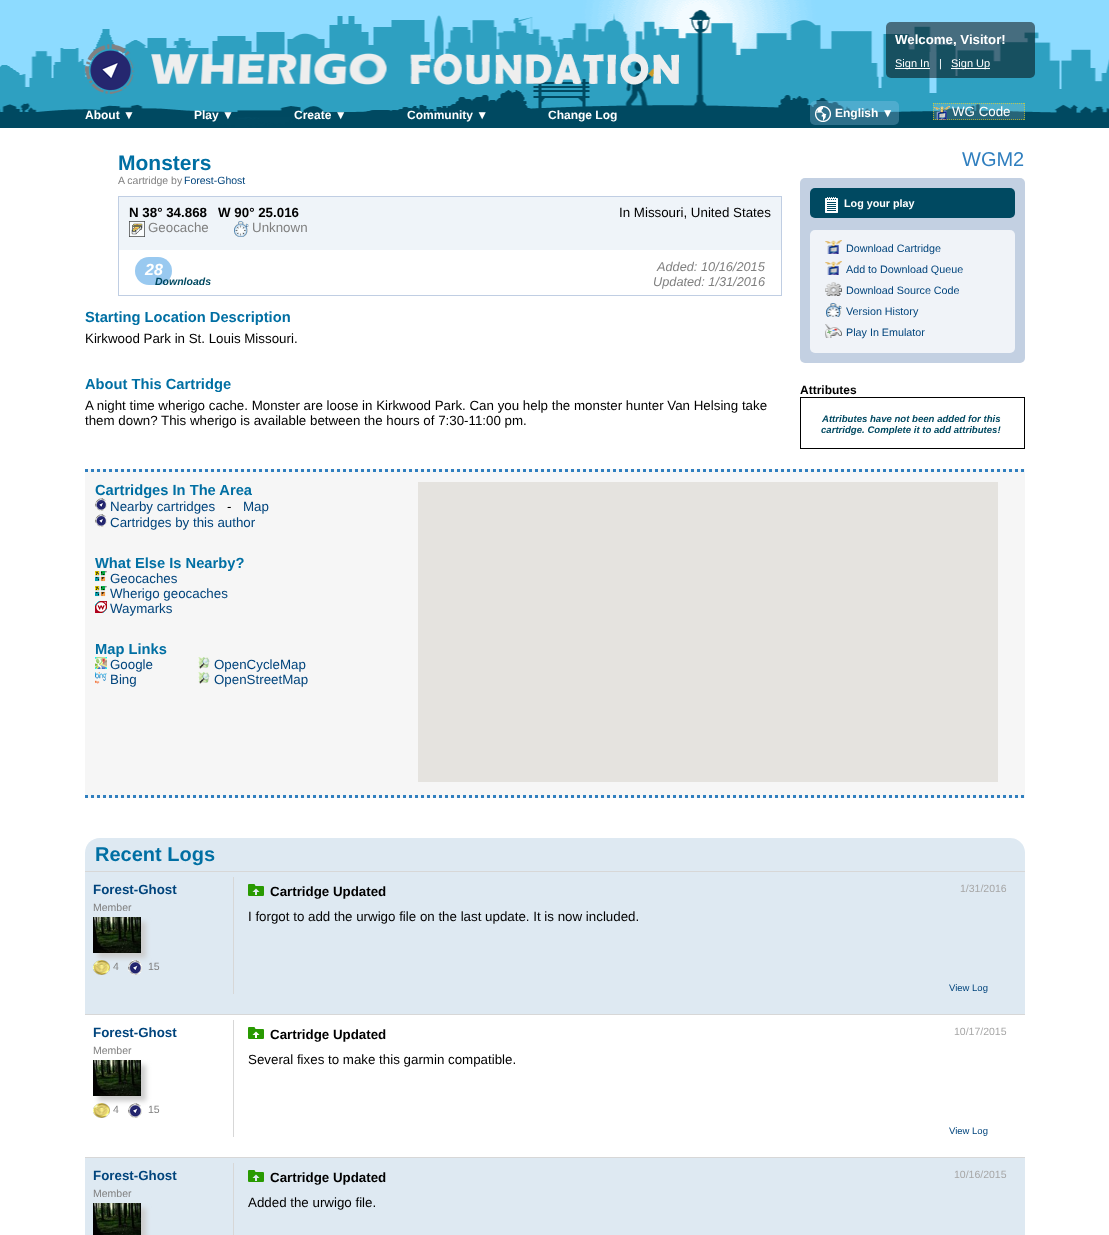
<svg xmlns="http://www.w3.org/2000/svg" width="1109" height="1235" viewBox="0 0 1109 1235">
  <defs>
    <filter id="blur1" x="-50%" y="-200%" width="200%" height="500%"><feGaussianBlur stdDeviation="2.5"/></filter>
  </defs>
  <rect width="100%" height="100%" fill="#ffffff"/>
  <image x="0" y="0" width="1109" height="128" href="img1.png"/>
  <image x="85" y="44" width="594" height="50" href="img2.png"/>
  <rect x="886" y="22" width="149" height="56" rx="5" fill="#000000" fill-opacity="0.5"/>
  <text x="895" y="44" font-family="Liberation Sans" font-size="13.25" font-weight="bold" fill="#ffffff">Welcome, Visitor!</text>
  <rect x="895" y="68" width="35" height="1" fill="#ffffff"/>
  <text x="895" y="67" font-family="Liberation Sans" font-size="11" fill="#ffffff">Sign In</text>
  <text x="939" y="67" font-family="Liberation Sans" font-size="11" fill="#ffffff">|</text>
  <rect x="951" y="68" width="39" height="1" fill="#ffffff"/>
  <text x="951" y="67" font-family="Liberation Sans" font-size="11" fill="#ffffff">Sign Up</text>
  <text x="85" y="119" font-family="Liberation Sans" font-size="12" font-weight="bold" fill="#ffffff">About ▼</text>
  <text x="194" y="119" font-family="Liberation Sans" font-size="12" font-weight="bold" fill="#ffffff">Play ▼</text>
  <text x="294" y="119" font-family="Liberation Sans" font-size="12" font-weight="bold" fill="#ffffff">Create ▼</text>
  <text x="407" y="119" font-family="Liberation Sans" font-size="12" font-weight="bold" fill="#ffffff">Community ▼</text>
  <text x="548" y="119" font-family="Liberation Sans" font-size="12" font-weight="bold" fill="#ffffff">Change Log</text>
  <rect x="810" y="101" width="89" height="24" rx="5" fill="#99c9f0" fill-opacity="0.3"/>
  <image x="815" y="106" width="16" height="16" href="img3.png"/>
  <text x="835" y="117" font-family="Liberation Sans" font-size="12" font-weight="bold" fill="#ffffff">English ▼</text>
  <rect x="933" y="103" width="92" height="17" fill="#ffffff" fill-opacity="0.15"/>
  <image x="934" y="106" width="16" height="14" href="img4.png"/>
  <path d="M933 103.5H1025" fill="none" stroke="#b8c751" stroke-dasharray="1 1"/>
  <path d="M1024.5 103V120" fill="none" stroke="#ffd700" stroke-opacity="0.6" stroke-dasharray="1 1"/>
  <path d="M933 119.5H1025" fill="none" stroke="#ffd700" stroke-opacity="0.6" stroke-dasharray="1 1"/>
  <path d="M933.5 103V120" fill="none" stroke="#ffd700" stroke-opacity="0.6" stroke-dasharray="1 1"/>
  <text x="952" y="116" font-family="Liberation Sans" font-size="13.33" fill="#ffffff">WG Code</text>
  <text x="118" y="170" font-family="Liberation Sans" font-size="21" font-weight="bold" fill="#006fa3">Monsters</text>
  <text x="118" y="184" font-family="Liberation Sans" font-size="10.5" fill="#808080">A cartridge by</text>
  <text x="184" y="184" font-family="Liberation Sans" font-size="10.5" fill="#00447c">Forest-Ghost</text>
  <rect x="118.5" y="196.5" width="663" height="99" fill="none" stroke="#c0cee3"/>
  <rect x="119" y="197" width="662" height="53" fill="#eff4f9"/>
  <text x="129" y="217" font-family="Liberation Sans" font-size="13.33" font-weight="bold" fill="#000000" xml:space="preserve">N 38° 34.868   W 90° 25.016</text>
  <image x="129" y="221" width="16" height="16" href="img5.png"/>
  <text x="148" y="232" font-family="Liberation Sans" font-size="13.33" fill="#808080">Geocache</text>
  <image x="234" y="221" width="15" height="16" href="img6.png"/>
  <text x="252" y="232" font-family="Liberation Sans" font-size="13.33" fill="#808080">Unknown</text>
  <text x="619" y="217" font-family="Liberation Sans" font-size="13.33" fill="#000000">In Missouri, United States</text>
  <rect x="135" y="257" width="37" height="28" rx="14" fill="#99c9f0"/>
  <text x="145" y="275" font-family="Liberation Sans" font-size="16" font-weight="bold" font-style="italic" fill="#ffffff">28</text>
  <text x="155" y="285" font-family="Liberation Sans" font-size="10.5" font-weight="bold" font-style="italic" fill="#004961">Downloads</text>
  <text x="657" y="271" font-family="Liberation Sans" font-size="12.75" font-style="italic" fill="#808080">Added: 10/16/2015</text>
  <text x="653" y="286" font-family="Liberation Sans" font-size="12.75" font-style="italic" fill="#808080">Updated: 1/31/2016</text>
  <text x="962" y="166" font-family="Liberation Sans" font-size="20" fill="#307fbf">WGM2</text>
  <rect x="800" y="178" width="225" height="185" rx="5" fill="#c3d0e2"/>
  <rect x="810" y="188" width="205" height="30" rx="5" fill="#004961"/>
  <image x="825" y="197" width="13" height="16" href="img7.png"/>
  <text x="844" y="207" font-family="Liberation Sans" font-size="10.75" font-weight="bold" fill="#ffffff">Log your play</text>
  <rect x="810" y="230" width="205" height="123" rx="5" fill="#f0f3f8"/>
  <image x="825" y="240" width="17" height="14" href="img8.png"/>
  <text x="846" y="252" font-family="Liberation Sans" font-size="10.75" fill="#00447c">Download Cartridge</text>
  <image x="825" y="261" width="17" height="14" href="img8.png"/>
  <text x="846" y="273" font-family="Liberation Sans" font-size="10.75" fill="#00447c">Add to Download Queue</text>
  <image x="825" y="282" width="17" height="14" href="img9.png"/>
  <text x="846" y="294" font-family="Liberation Sans" font-size="10.75" fill="#00447c">Download Source Code</text>
  <image x="826" y="303" width="16" height="14" href="img10.png"/>
  <text x="846" y="315" font-family="Liberation Sans" font-size="10.75" fill="#00447c">Version History</text>
  <image x="825" y="324" width="17" height="14" href="img11.png"/>
  <text x="846" y="336" font-family="Liberation Sans" font-size="10.75" fill="#00447c">Play In Emulator</text>
  <text x="800" y="394" font-family="Liberation Sans" font-size="12" font-weight="bold" fill="#000000">Attributes</text>
  <rect x="800.5" y="397.5" width="224" height="51" fill="none" stroke="#000000"/>
  <text x="822" y="422" font-family="Liberation Sans" font-size="9.6" font-weight="bold" font-style="italic" fill="#004961">Attributes have not been added for this</text>
  <text x="821" y="433" font-family="Liberation Sans" font-size="9.6" font-weight="bold" font-style="italic" fill="#004961">cartridge. Complete it to add attributes!</text>
  <text x="85" y="322" font-family="Liberation Sans" font-size="14.7" font-weight="bold" fill="#006fa3">Starting Location Description</text>
  <text x="85" y="343" font-family="Liberation Sans" font-size="13.33" fill="#000000">Kirkwood Park in St. Louis Missouri.</text>
  <text x="85" y="389" font-family="Liberation Sans" font-size="14.7" font-weight="bold" fill="#006fa3">About This Cartridge</text>
  <text x="85" y="410" font-family="Liberation Sans" font-size="13.33" fill="#000000">A night time wherigo cache. Monster are loose in Kirkwood Park. Can you help the monster hunter Van Helsing take</text>
  <text x="85" y="425" font-family="Liberation Sans" font-size="13.33" fill="#000000">them down? This wherigo is available between the hours of 7:30-11:00 pm.</text>
  <rect x="85" y="469" width="940" height="329" fill="#f6f6f6"/>
  <path d="M85 470.5H1025" fill="none" stroke="#307fbf" stroke-width="3" stroke-dasharray="3 3"/>
  <path d="M85 796.5H1025" fill="none" stroke="#307fbf" stroke-width="3" stroke-dasharray="3 3"/>
  <text x="95" y="495" font-family="Liberation Sans" font-size="14.7" font-weight="bold" fill="#006fa3">Cartridges In The Area</text>
  <image x="95" y="498" width="12" height="13" href="img12.png"/>
  <text x="110" y="511" font-family="Liberation Sans" font-size="13.33" fill="#00447c">Nearby cartridges</text>
  <text x="227" y="511" font-family="Liberation Sans" font-size="13.33" fill="#000000">-</text>
  <text x="243" y="511" font-family="Liberation Sans" font-size="13.33" fill="#00447c">Map</text>
  <image x="95" y="514" width="12" height="13" href="img12.png"/>
  <text x="110" y="527" font-family="Liberation Sans" font-size="13.33" fill="#00447c">Cartridges by this author</text>
  <text x="95" y="568" font-family="Liberation Sans" font-size="14.7" font-weight="bold" fill="#006fa3">What Else Is Nearby?</text>
  <image x="95" y="571" width="12" height="11" href="img13.png"/>
  <text x="110" y="583" font-family="Liberation Sans" font-size="13.33" fill="#00447c">Geocaches</text>
  <image x="95" y="586" width="12" height="11" href="img13.png"/>
  <text x="110" y="598" font-family="Liberation Sans" font-size="13.33" fill="#00447c">Wherigo geocaches</text>
  <image x="95" y="601" width="12" height="12" href="img14.png"/>
  <text x="110" y="613" font-family="Liberation Sans" font-size="13.33" fill="#00447c">Waymarks</text>
  <text x="95" y="654" font-family="Liberation Sans" font-size="14.7" font-weight="bold" fill="#006fa3">Map Links</text>
  <image x="95" y="657" width="12" height="12" href="img15.png"/>
  <text x="110" y="669" font-family="Liberation Sans" font-size="13.33" fill="#00447c">Google</text>
  <image x="198" y="657" width="12" height="12" href="img16.png"/>
  <text x="214" y="669" font-family="Liberation Sans" font-size="13.33" fill="#00447c">OpenCycleMap</text>
  <image x="95" y="672" width="12" height="12" href="img17.png"/>
  <text x="110" y="684" font-family="Liberation Sans" font-size="13.33" fill="#00447c">Bing</text>
  <image x="198" y="672" width="12" height="12" href="img16.png"/>
  <text x="214" y="684" font-family="Liberation Sans" font-size="13.33" fill="#00447c">OpenStreetMap</text>
  <rect x="418" y="482" width="580" height="300" fill="#e5e3df"/>
  <path d="M100 838H1010C1018.5 838 1025 844.5 1025 853V871H85V853C85 844.5 91.5 838 100 838Z" fill="#dee9f2"/>
  <text x="95" y="861" font-family="Liberation Sans" font-size="20" font-weight="bold" fill="#006fa3">Recent Logs</text>
  <rect x="85" y="872" width="940" height="142" fill="#dee9f2"/>
  <rect x="85" y="871" width="940" height="1" fill="#d7d7d7"/>
  <text x="93" y="894" font-family="Liberation Sans" font-size="13.33" font-weight="bold" fill="#00447c">Forest-Ghost</text>
  <text x="93" y="911" font-family="Liberation Sans" font-size="10.5" fill="#808080">Member</text>
  <rect x="98" y="922" width="48" height="36" fill="#cccccc" filter="url(#blur1)"/>
  <image x="93" y="917" width="48" height="36" href="img18.png"/>
  <image x="93" y="960" width="17" height="15" href="img19.png"/>
  <text x="113" y="970" font-family="Liberation Sans" font-size="10.5" fill="#808080">4</text>
  <image x="128" y="960" width="14" height="15" href="img20.png"/>
  <text x="148" y="970" font-family="Liberation Sans" font-size="10.5" fill="#808080">15</text>
  <rect x="233" y="877" width="1" height="117" fill="#d7d7d7"/>
  <image x="248" y="884" width="16" height="12" href="img21.png"/>
  <text x="270" y="896" font-family="Liberation Sans" font-size="13.33" font-weight="bold" fill="#000000">Cartridge Updated</text>
  <text x="960" y="892" font-family="Liberation Sans" font-size="10.5" fill="#a7a7a7">1/31/2016</text>
  <text x="248" y="921" font-family="Liberation Sans" font-size="13.33" fill="#000000">I forgot to add the urwigo file on the last update. It is now included.</text>
  <text x="949" y="991" font-family="Liberation Sans" font-size="9.5" fill="#00447c">View Log</text>
  <rect x="85" y="1014" width="940" height="1" fill="#d7d7d7"/>
  <text x="93" y="1037" font-family="Liberation Sans" font-size="13.33" font-weight="bold" fill="#00447c">Forest-Ghost</text>
  <text x="93" y="1054" font-family="Liberation Sans" font-size="10.5" fill="#808080">Member</text>
  <rect x="98" y="1065" width="48" height="36" fill="#cccccc" filter="url(#blur1)"/>
  <image x="93" y="1060" width="48" height="36" href="img18.png"/>
  <image x="93" y="1103" width="17" height="15" href="img22.png"/>
  <text x="113" y="1113" font-family="Liberation Sans" font-size="10.5" fill="#808080">4</text>
  <image x="128" y="1103" width="14" height="15" href="img23.png"/>
  <text x="148" y="1113" font-family="Liberation Sans" font-size="10.5" fill="#808080">15</text>
  <rect x="233" y="1020" width="1" height="117" fill="#d7d7d7"/>
  <image x="248" y="1027" width="16" height="12" href="img24.png"/>
  <text x="270" y="1039" font-family="Liberation Sans" font-size="13.33" font-weight="bold" fill="#000000">Cartridge Updated</text>
  <text x="954" y="1035" font-family="Liberation Sans" font-size="10.5" fill="#a7a7a7">10/17/2015</text>
  <text x="248" y="1064" font-family="Liberation Sans" font-size="13.33" fill="#000000">Several fixes to make this garmin compatible.</text>
  <text x="949" y="1134" font-family="Liberation Sans" font-size="9.5" fill="#00447c">View Log</text>
  <rect x="85" y="1158" width="940" height="77" fill="#dee9f2"/>
  <rect x="85" y="1157" width="940" height="1" fill="#d7d7d7"/>
  <text x="93" y="1180" font-family="Liberation Sans" font-size="13.33" font-weight="bold" fill="#00447c">Forest-Ghost</text>
  <text x="93" y="1197" font-family="Liberation Sans" font-size="10.5" fill="#808080">Member</text>
  <rect x="98" y="1208" width="48" height="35" fill="#cccccc" filter="url(#blur1)"/>
  <image x="93" y="1203" width="48" height="32" href="img25.png"/>
  <rect x="233" y="1163" width="1" height="72" fill="#d7d7d7"/>
  <image x="248" y="1170" width="16" height="12" href="img21.png"/>
  <text x="270" y="1182" font-family="Liberation Sans" font-size="13.33" font-weight="bold" fill="#000000">Cartridge Updated</text>
  <text x="954" y="1178" font-family="Liberation Sans" font-size="10.5" fill="#a7a7a7">10/16/2015</text>
  <text x="248" y="1207" font-family="Liberation Sans" font-size="13.33" fill="#000000">Added the urwigo file.</text>
</svg>
